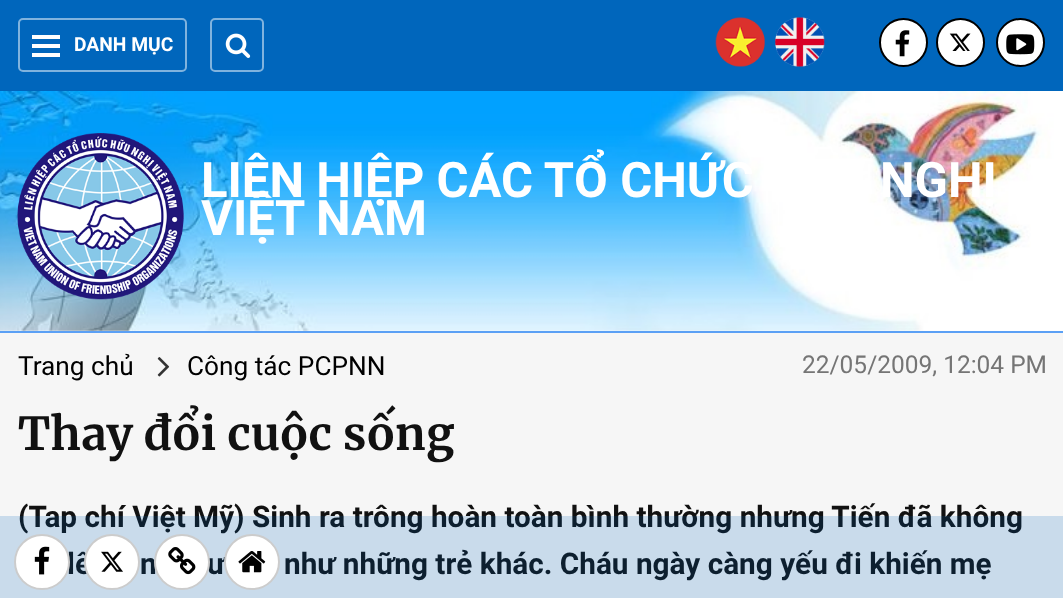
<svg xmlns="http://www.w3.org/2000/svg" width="1063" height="598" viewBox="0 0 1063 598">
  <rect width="100%" height="100%" fill="#ffffff"/>
  <rect x="0" y="0" width="1063" height="91" fill="#0066bc"/>
  <rect x="19" y="19" width="167" height="52" rx="4" fill="none" stroke="#80b3de" stroke-width="2"/>
  <rect x="32" y="35" width="28" height="4" fill="#ffffff"/>
  <rect x="32" y="44" width="28" height="4" fill="#ffffff"/>
  <rect x="32" y="53" width="28" height="4" fill="#ffffff"/>
  <text x="74" y="51" font-family="Roboto" font-size="19.25" font-weight="bold" fill="#ffffff">DANH MỤC</text>
  <rect x="211" y="19" width="52" height="52" rx="4" fill="none" stroke="#80b3de" stroke-width="2"/>
  <image x="225" y="33" width="26" height="25" href="img1.png"/>
  <image x="715" y="17" width="50" height="50" href="img2.png"/>
  <image x="775" y="17" width="50" height="50" href="img3.png"/>
  <circle cx="903.5" cy="42.5" r="23.5" fill="#ffffff" stroke="#000000" stroke-width="2"/>
  <image x="895" y="30" width="15" height="27" href="img4.png"/>
  <circle cx="960.5" cy="42.5" r="23.5" fill="#ffffff" stroke="#000000" stroke-width="2"/>
  <image x="949" y="33" width="22" height="18" href="img5.png"/>
  <circle cx="1020.5" cy="42.5" r="23.5" fill="#ffffff" stroke="#000000" stroke-width="2"/>
  <image x="1006" y="34" width="29" height="21" href="img6.png"/>
  <image x="0" y="91" width="1063" height="240" href="img7.png"/>
  <rect x="0" y="331" width="1063" height="2" fill="#5ba0f5"/>
  <image x="17" y="133" width="167" height="167" href="img8.png"/>
  <text x="201" y="197" font-family="Roboto" font-size="49" font-weight="bold" fill="#ffffff">LIÊN HIỆP CÁC TỔ CHỨC</text>
  <text x="880" y="197" font-family="Roboto" font-size="49" font-weight="bold" fill="#ffffff">NGHỊ</text>
  <text x="201" y="235" font-family="Roboto" font-size="49" font-weight="bold" fill="#ffffff">VIỆT NAM</text>
  <rect x="0" y="333" width="1063" height="265" fill="#f6f6f6"/>
  <text x="18" y="375" font-family="Roboto" font-size="26.25" fill="#000000">Trang chủ</text>
  <image x="157" y="357" width="13" height="20" href="img9.png"/>
  <text x="187" y="375" font-family="Roboto" font-size="26.25" fill="#000000">Công tác PCPNN</text>
  <text x="802" y="373" font-family="Roboto" font-size="24.5" fill="#757575">22/05/2009, 12:04 PM</text>
  <text x="18" y="450" font-family="Merriweather" font-size="45.5" font-weight="bold" fill="#111111">Thay đổi cuộc sống</text>
  <text x="18" y="527" font-family="Roboto" font-size="29.75" font-weight="bold" fill="#111111">(Tap chí Việt Mỹ) Sinh ra trông hoàn toàn bình thường nhưng Tiến đã không</text>
  <text x="67" y="574" font-family="Roboto" font-size="29.75" font-weight="bold" fill="#111111">lê</text>
  <text x="140" y="574" font-family="Roboto" font-size="29.75" font-weight="bold" fill="#111111">n</text>
  <text x="207" y="574" font-family="Roboto" font-size="29.75" font-weight="bold" fill="#111111">ư</text>
  <text x="284" y="574" font-family="Roboto" font-size="29.75" font-weight="bold" fill="#111111">như những trẻ khác. Cháu ngày càng yếu đi khiến mẹ</text>
  <rect x="0" y="516" width="1063" height="82" fill="#0066bc" fill-opacity="0.18"/>
  <circle cx="42" cy="562" r="27" fill="#ffffff" stroke="#cccccc" stroke-width="2"/>
  <image x="34" y="546" width="16" height="29" href="img10.png"/>
  <circle cx="112" cy="562" r="27" fill="#ffffff" stroke="#cccccc" stroke-width="2"/>
  <image x="101" y="551" width="22" height="21" href="img11.png"/>
  <circle cx="182" cy="562" r="27" fill="#ffffff" stroke="#cccccc" stroke-width="2"/>
  <image x="168" y="547" width="28" height="28" href="img12.png"/>
  <circle cx="252" cy="562" r="27" fill="#ffffff" stroke="#cccccc" stroke-width="2"/>
  <image x="238" y="551" width="28" height="22" href="img13.png"/>
</svg>
